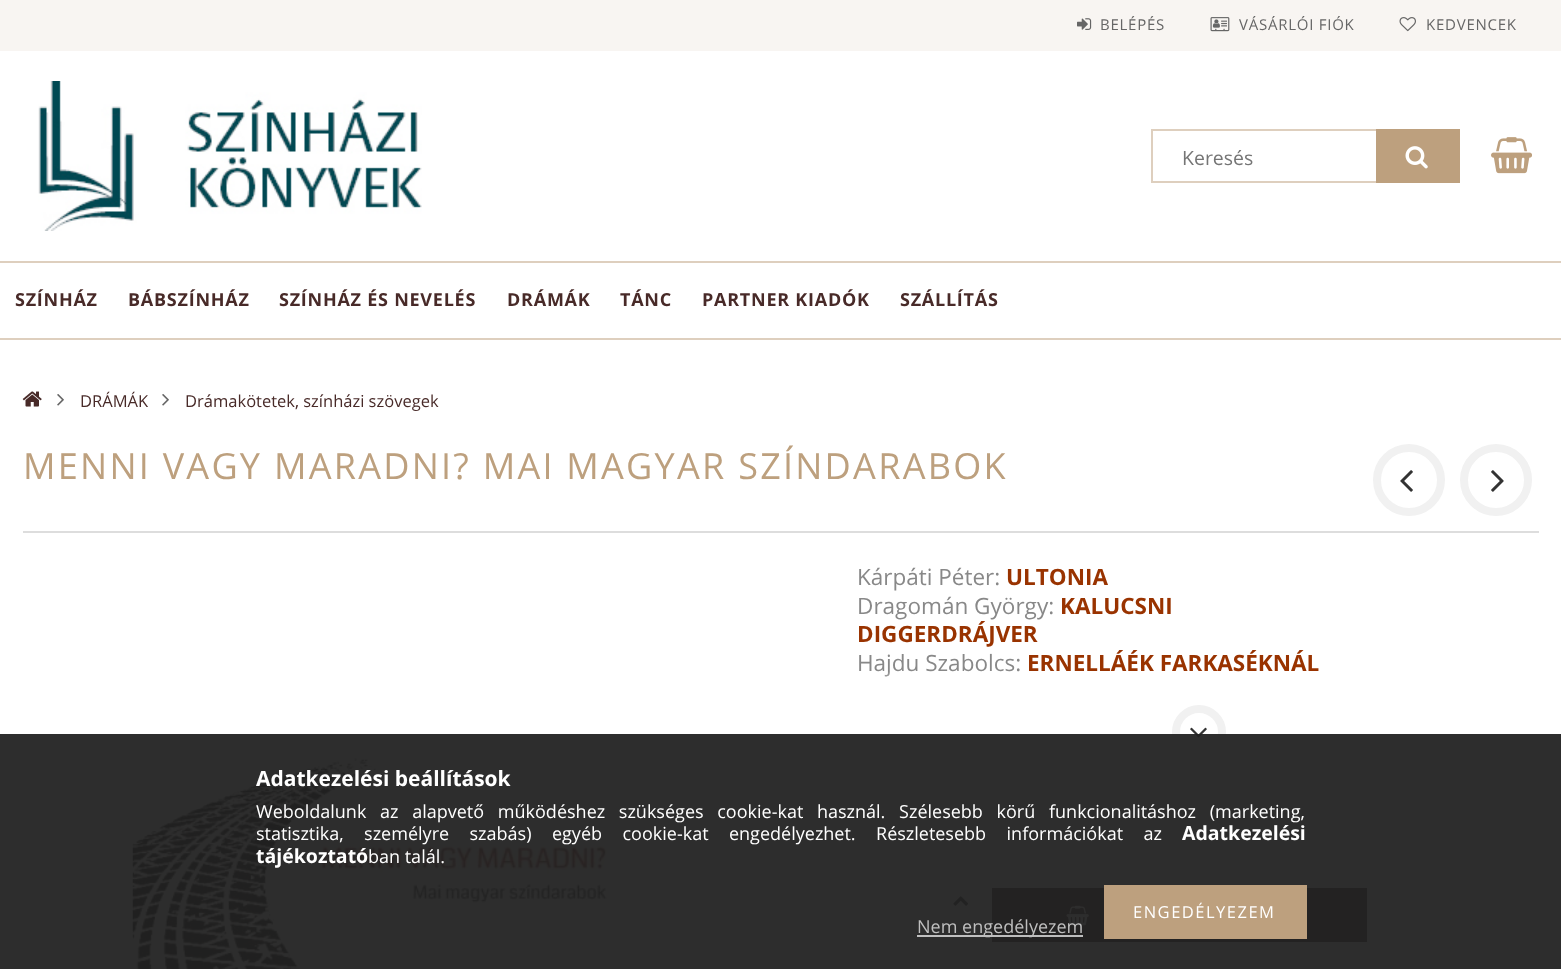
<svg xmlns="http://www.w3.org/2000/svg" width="1561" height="969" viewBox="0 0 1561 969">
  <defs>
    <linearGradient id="g1" gradientUnits="userSpaceOnUse" x1="1198" y1="671" x2="1198" y2="698"><stop offset="0" stop-color="#ffffff" stop-opacity="0"/><stop offset="1" stop-color="#ffffff"/></linearGradient>
  </defs>
  <rect width="100%" height="100%" fill="#ffffff"/>
  <rect x="0" y="0" width="1561" height="51" fill="#f8f5f2"/>
  <image x="1077" y="18" width="15" height="12" href="img1.png"/>
  <text x="1100" y="30" font-family="Open Sans" font-size="15" letter-spacing="0.75" fill="#666666">BELÉPÉS</text>
  <image x="1210" y="17" width="20" height="15" href="img2.png"/>
  <text x="1239" y="30" font-family="Open Sans" font-size="15" letter-spacing="0.75" fill="#666666">VÁSÁRLÓI FIÓK</text>
  <image x="1399" y="17" width="17" height="15" href="img3.png"/>
  <text x="1426" y="30" font-family="Open Sans" font-size="15" letter-spacing="0.75" fill="#666666">KEDVENCEK</text>
  <image x="38" y="81" width="384" height="150" href="img4.png"/>
  <rect x="1152" y="130" width="307" height="52" fill="none" stroke="#decfbe" stroke-width="2"/>
  <text x="1182" y="165" font-family="Open Sans" font-size="19.5" fill="#757575">Keresés</text>
  <rect x="1376" y="129" width="84" height="54" fill="#bda07e"/>
  <image x="1405" y="146" width="23" height="23" href="img5.png"/>
  <image x="1491" y="137" width="41" height="37" href="img6.png"/>
  <rect x="0" y="261" width="1561" height="2" fill="#decfbe"/>
  <rect x="0" y="338" width="1561" height="2" fill="#decfbe"/>
  <text x="15" y="306" font-family="Open Sans" font-size="18" font-weight="bold" letter-spacing="0.75" fill="#482a28">SZÍNHÁZ</text>
  <text x="128" y="306" font-family="Open Sans" font-size="18" font-weight="bold" letter-spacing="0.75" fill="#482a28">BÁBSZÍNHÁZ</text>
  <text x="279" y="306" font-family="Open Sans" font-size="18" font-weight="bold" letter-spacing="0.75" fill="#482a28">SZÍNHÁZ ÉS NEVELÉS</text>
  <text x="507" y="306" font-family="Open Sans" font-size="18" font-weight="bold" letter-spacing="0.75" fill="#482a28">DRÁMÁK</text>
  <text x="620" y="306" font-family="Open Sans" font-size="18" font-weight="bold" letter-spacing="0.75" fill="#482a28">TÁNC</text>
  <text x="702" y="306" font-family="Open Sans" font-size="18" font-weight="bold" letter-spacing="0.75" fill="#482a28">PARTNER KIADÓK</text>
  <text x="900" y="306" font-family="Open Sans" font-size="18" font-weight="bold" letter-spacing="0.75" fill="#482a28">SZÁLLÍTÁS</text>
  <image x="22" y="391" width="20" height="16" href="img7.png"/>
  <image x="57" y="394" width="7" height="12" href="img8.png"/>
  <text x="80" y="407" font-family="Open Sans" font-size="16.5" fill="#482a28">DRÁMÁK</text>
  <image x="162" y="394" width="7" height="12" href="img8.png"/>
  <text x="185" y="407" font-family="Open Sans" font-size="16.5" fill="#482a28">Drámakötetek, színházi szövegek</text>
  <rect x="23" y="531" width="1516" height="2" fill="#dddddd"/>
  <text x="23" y="479" font-family="Open Sans" font-size="36" letter-spacing="2.25" fill="#bda07e">MENNI VAGY MARADNI? MAI MAGYAR SZÍNDARABOK</text>
  <circle cx="1409" cy="480" r="32" fill="none" stroke="#f1f1f1" stroke-width="8"/>
  <image x="1400" y="470" width="13" height="22" href="img9.png"/>
  <circle cx="1496" cy="480" r="32" fill="none" stroke="#f1f1f1" stroke-width="8"/>
  <image x="1491" y="470" width="13" height="22" href="img10.png"/>
  <text x="857" y="585" font-family="Open Sans" font-size="22.5" fill="#888888">Kárpáti Péter:</text>
  <text x="1006" y="585" font-family="Open Sans" font-size="22.5" font-weight="bold" fill="#993300">ULTONIA</text>
  <text x="857" y="614" font-family="Open Sans" font-size="22.5" fill="#888888">Dragomán György:</text>
  <text x="1060" y="614" font-family="Open Sans" font-size="22.5" font-weight="bold" fill="#993300">KALUCSNI</text>
  <text x="857" y="642" font-family="Open Sans" font-size="22.5" font-weight="bold" fill="#993300">DIGGERDRÁJVER</text>
  <text x="857" y="671" font-family="Open Sans" font-size="22.5" fill="#888888">Hajdu Szabolcs:</text>
  <text x="1027" y="671" font-family="Open Sans" font-size="22.5" font-weight="bold" fill="#993300">ERNELLÁÉK FARKASÉKNÁL</text>
  <rect x="884" y="672" width="6" height="5" fill="url(#g1)"/>
  <circle cx="1199" cy="732" r="23" fill="none" stroke="#f1f1f1" stroke-width="8"/>
  <image x="1190" y="727" width="17" height="11" href="img11.png"/>
  <rect x="857" y="774" width="682" height="96" fill="#f8f5f2"/>
  <rect x="857" y="873" width="682" height="84" fill="#f8f5f2"/>
  <rect x="887" y="888" width="60" height="54" fill="#ffffff"/>
  <rect x="947" y="888" width="30" height="54" fill="#ffffff"/>
  <image x="953" y="896" width="16" height="10" href="img12.png"/>
  <image x="953" y="923" width="15" height="11" href="img13.png"/>
  <rect x="992" y="888" width="375" height="54" fill="#482a28"/>
  <image x="1066" y="905" width="23" height="21" href="img14.png"/>
  <image x="126" y="751" width="488" height="218" href="img15.png"/>
  <rect x="0" y="734" width="1561" height="235" fill="#222222" fill-opacity="0.95"/>
  <text x="256" y="786" font-family="Open Sans" font-size="21" font-weight="bold" fill="#ffffff">Adatkezelési beállítások</text>
  <text x="256" y="818" word-spacing="9" font-family="Open Sans" font-size="18" fill="#ffffff">Weboldalunk az alapvető működéshez szükséges cookie-kat használ. Szélesebb körű funkcionalitáshoz (marketing,</text>
  <text x="256" y="840" word-spacing="15.75" font-family="Open Sans" font-size="18" fill="#ffffff">statisztika, személyre szabás) egyéb cookie-kat engedélyezhet. Részletesebb információkat az</text>
  <text x="1182" y="840" font-family="Open Sans" font-size="19.5" font-weight="bold" fill="#ffffff">Adatkezelési</text>
  <text x="256" y="863" font-family="Open Sans" font-size="19.5" font-weight="bold" fill="#ffffff">tájékoztató</text>
  <text x="368" y="863" font-family="Open Sans" font-size="18" fill="#ffffff">ban talál.</text>
  <rect x="1104" y="885" width="203" height="54" fill="#bda07e"/>
  <text x="1133" y="918" font-family="Open Sans" font-size="16.5" letter-spacing="1.5" fill="#ffffff">ENGEDÉLYEZEM</text>
  <rect x="917" y="935" width="166" height="2" fill="#ffffff" fill-opacity="0.7"/>
  <text x="917" y="933" font-family="Open Sans" font-size="18" fill="#bfbfbf">Nem engedélyezem</text>
</svg>
